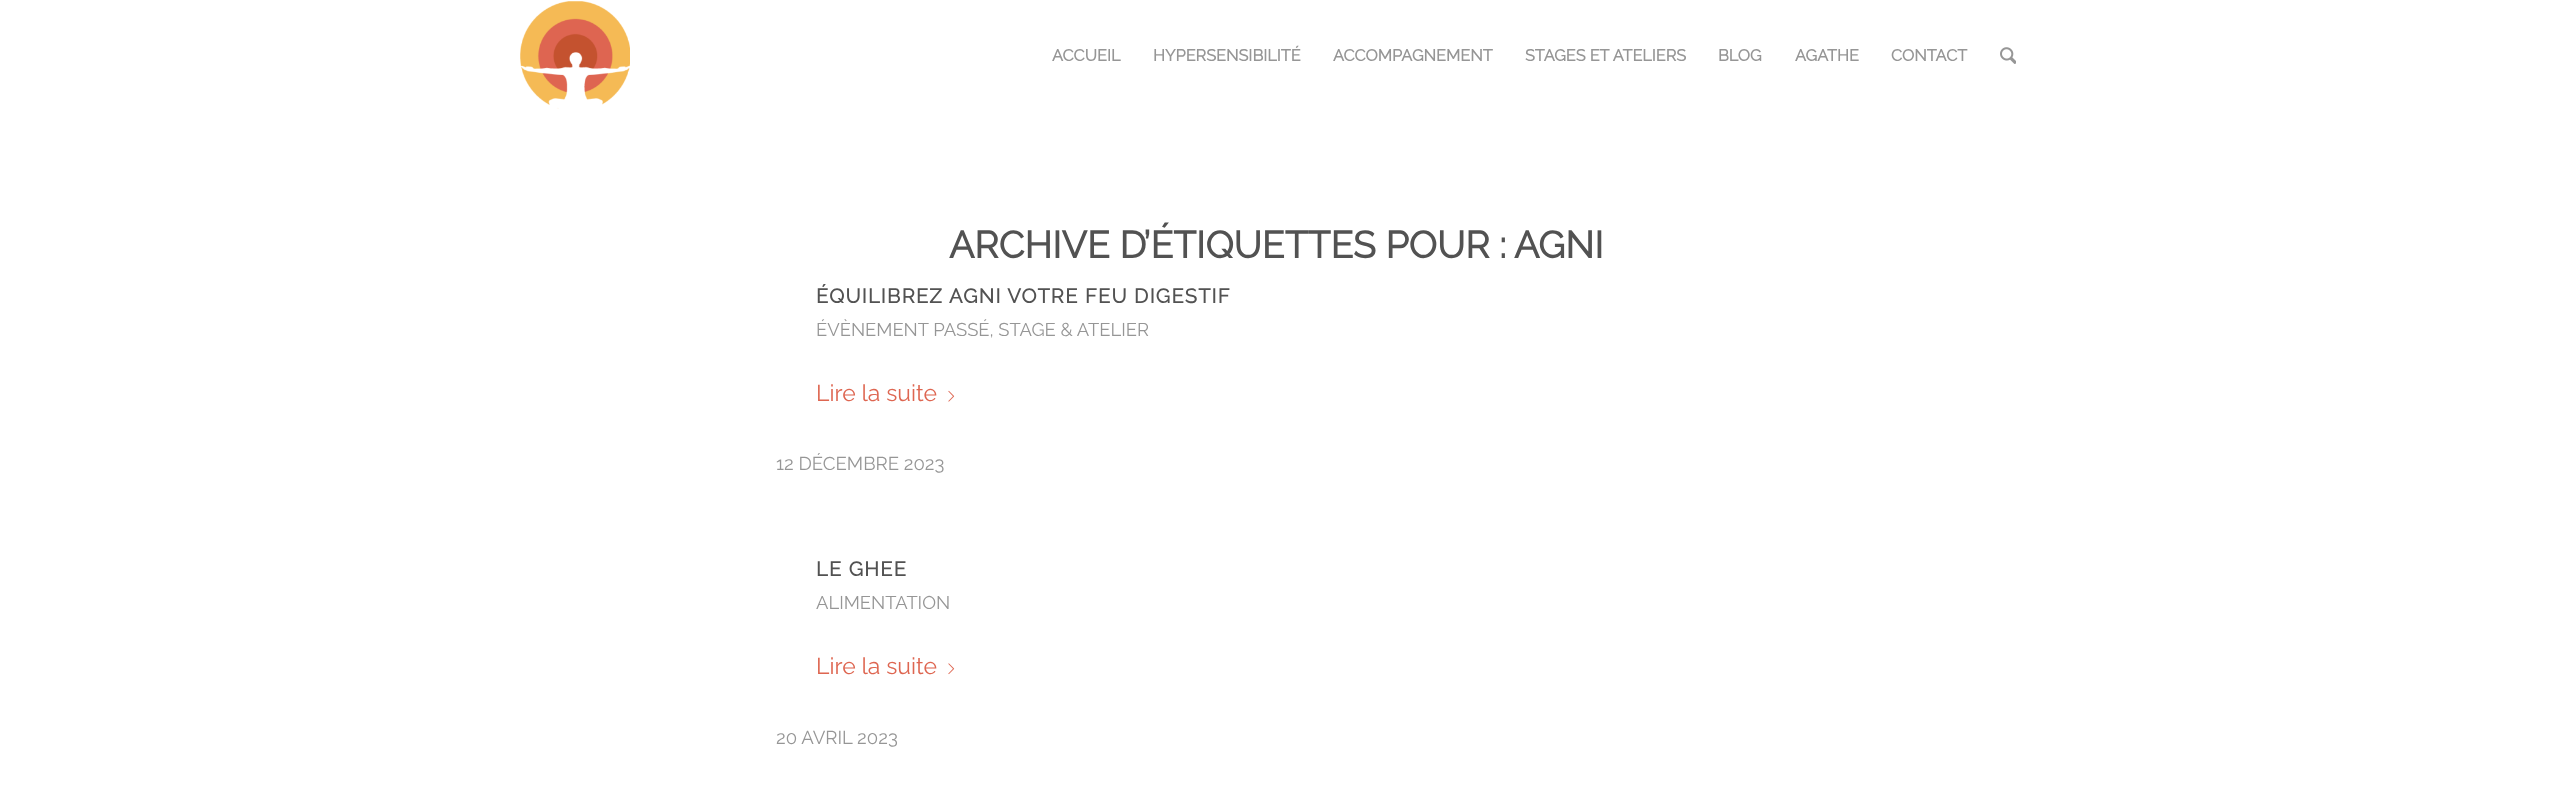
<svg xmlns="http://www.w3.org/2000/svg" width="2552" height="786" viewBox="0 0 2552 786">
  <rect width="100%" height="100%" fill="#ffffff"/>
  <image x="520" y="1" width="110" height="108" href="img1.png"/>
  <text x="1052" y="61" font-family="Raleway" font-size="16.25" font-weight="bold" fill="#969696">ACCUEIL</text>
  <text x="1153" y="61" font-family="Raleway" font-size="16.25" font-weight="bold" fill="#969696">HYPERSENSIBILITÉ</text>
  <text x="1333" y="61" font-family="Raleway" font-size="16.25" font-weight="bold" fill="#969696">ACCOMPAGNEMENT</text>
  <text x="1525" y="61" font-family="Raleway" font-size="16.25" font-weight="bold" fill="#969696">STAGES ET ATELIERS</text>
  <text x="1718" y="61" font-family="Raleway" font-size="16.25" font-weight="bold" fill="#969696">BLOG</text>
  <text x="1795" y="61" font-family="Raleway" font-size="16.25" font-weight="bold" fill="#969696">AGATHE</text>
  <text x="1891" y="61" font-family="Raleway" font-size="16.25" font-weight="bold" fill="#969696">CONTACT</text>
  <image x="2000" y="47" width="16" height="17" href="img2.png"/>
  <text x="949" y="258" font-family="Raleway" font-size="37.5" font-weight="bold" fill="#525252">ARCHIVE D’ÉTIQUETTES POUR :</text>
  <text x="1514" y="258" font-family="Raleway" font-size="37.5" font-weight="bold" fill="#525252">AGNI</text>
  <text x="816" y="303" font-family="Raleway" font-size="20" font-weight="bold" letter-spacing="1.25" fill="#525252">ÉQUILIBREZ AGNI VOTRE FEU DIGESTIF</text>
  <text x="816" y="336" font-family="Raleway" font-size="18.4" font-weight="100" fill="#969696">ÉVÈNEMENT PASSÉ, STAGE &amp; ATELIER</text>
  <text x="816" y="401" font-family="Raleway" font-size="23" font-weight="100" fill="#de6651">Lire la suite</text>
  <image x="948" y="390" width="7" height="12" href="img3.png"/>
  <text x="776" y="470" font-family="Raleway" font-size="18.6" font-weight="100" fill="#969696">12 DÉCEMBRE 2023</text>
  <text x="816" y="576" font-family="Raleway" font-size="20" font-weight="bold" letter-spacing="1.25" fill="#525252">LE GHEE</text>
  <text x="816" y="609" font-family="Raleway" font-size="18.4" font-weight="100" fill="#969696">ALIMENTATION</text>
  <text x="816" y="674" font-family="Raleway" font-size="23" font-weight="100" fill="#de6651">Lire la suite</text>
  <image x="948" y="663" width="7" height="12" href="img4.png"/>
  <text x="776" y="744" font-family="Raleway" font-size="18.6" font-weight="100" fill="#969696">20 AVRIL 2023</text>
</svg>
